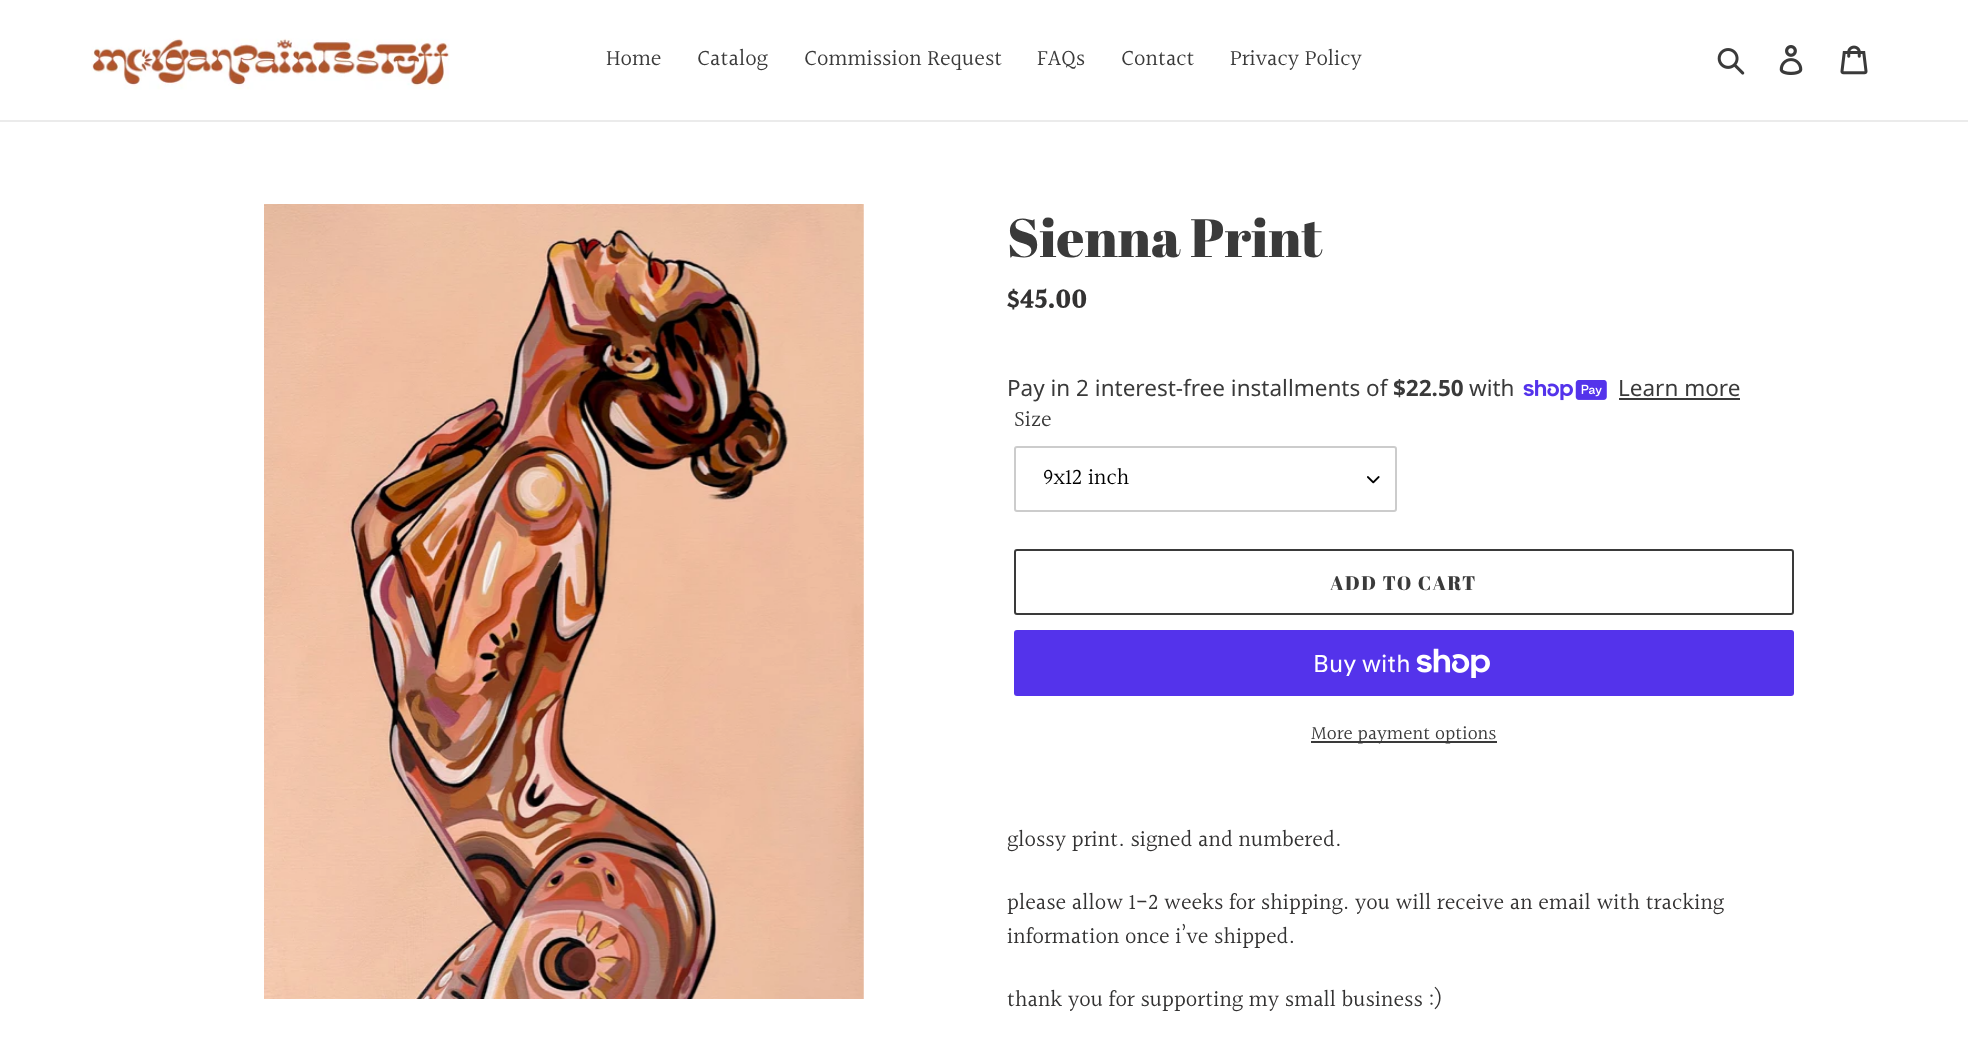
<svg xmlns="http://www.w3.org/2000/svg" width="1968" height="1043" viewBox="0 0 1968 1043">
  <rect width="100%" height="100%" fill="#ffffff"/>
  <rect x="0" y="120" width="1968" height="2" fill="#ebebeb"/>
  <image x="91" y="38" width="359" height="52" href="img1.png"/>
  <text x="606" y="66" font-family="Halant" font-size="22.5" fill="#3a3a3a">Home</text>
  <text x="697" y="66" font-family="Halant" font-size="22.5" fill="#3a3a3a">Catalog</text>
  <text x="804" y="66" font-family="Halant" font-size="22.5" fill="#3a3a3a">Commission Request</text>
  <text x="1037" y="66" font-family="Halant" font-size="22.5" fill="#3a3a3a">FAQs</text>
  <text x="1121" y="66" font-family="Halant" font-size="22.5" fill="#3a3a3a">Contact</text>
  <text x="1230" y="66" font-family="Halant" font-size="22.5" fill="#3a3a3a">Privacy Policy</text>
  <image x="1717" y="48" width="28" height="27" href="img2.png"/>
  <image x="1779" y="45" width="24" height="30" href="img3.png"/>
  <image x="1840" y="45" width="28" height="30" href="img4.png"/>
  <image x="264" y="204" width="600" height="795" href="img5.png"/>
  <text x="1007" y="257" font-family="Abril Fatface" font-size="54" fill="#3a3a3a">Sienna Print</text>
  <text x="1007" y="309" font-family="Halant" font-size="28" font-weight="bold" fill="#333232">$45.00</text>
  <text x="1007" y="396" font-family="Noto Sans" font-size="22.5" fill="#3a3a3a">Pay in 2 interest-free installments of</text>
  <text x="1393" y="396" font-family="Noto Sans" font-size="22.5" font-weight="bold" fill="#3a3a3a">$22.50</text>
  <text x="1469" y="396" font-family="Noto Sans" font-size="22.5" fill="#3a3a3a">with</text>
  <image x="1523" y="380" width="84" height="21" href="img6.png"/>
  <text x="1618" y="396" font-family="Noto Sans" font-size="22.5" fill="#3a3a3a">Learn more</text>
  <rect x="1619" y="398" width="121" height="2" fill="#3a3a3a"/>
  <text x="1014" y="427" font-family="Halant" font-size="22.5" fill="#3a3a3a">Size</text>
  <image x="1367" y="476" width="13" height="8" href="img7.png"/>
  <rect x="1015" y="447" width="381" height="64" rx="2" fill="none" stroke="#cccccc" stroke-width="2"/>
  <text x="1043" y="485" font-family="Halant" font-size="22.5" fill="#000000">9x12 inch</text>
  <rect x="1015" y="550" width="778" height="64" rx="2" fill="none" stroke="#3a3a3a" stroke-width="2"/>
  <text x="1330" y="590" font-family="Abril Fatface" font-size="19.5" letter-spacing="1.5" fill="#3a3a3a">ADD TO CART</text>
  <rect x="1014" y="630" width="780" height="66" rx="3" fill="#5433eb"/>
  <text x="1313" y="672" font-family="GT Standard" font-size="24" fill="#ffffff">Buy with</text>
  <image x="1416" y="648" width="74" height="30" href="img8.png"/>
  <rect x="1311" y="741" width="186" height="2" fill="#3a3a3a"/>
  <text x="1311" y="740" font-family="Halant" font-size="19.5" fill="#3a3a3a">More payment options</text>
  <text x="1007" y="847" font-family="Halant" font-size="22.5" fill="#333232">glossy print. signed and numbered.</text>
  <text x="1007" y="910" font-family="Halant" font-size="22.5" fill="#333232">please allow 1-2 weeks for shipping. you will receive an email with tracking</text>
  <text x="1007" y="944" font-family="Halant" font-size="22.5" fill="#333232">information once i’ve shipped.</text>
  <text x="1007" y="1007" font-family="Halant" font-size="22.5" fill="#333232">thank you for supporting my small business :)</text>
</svg>
